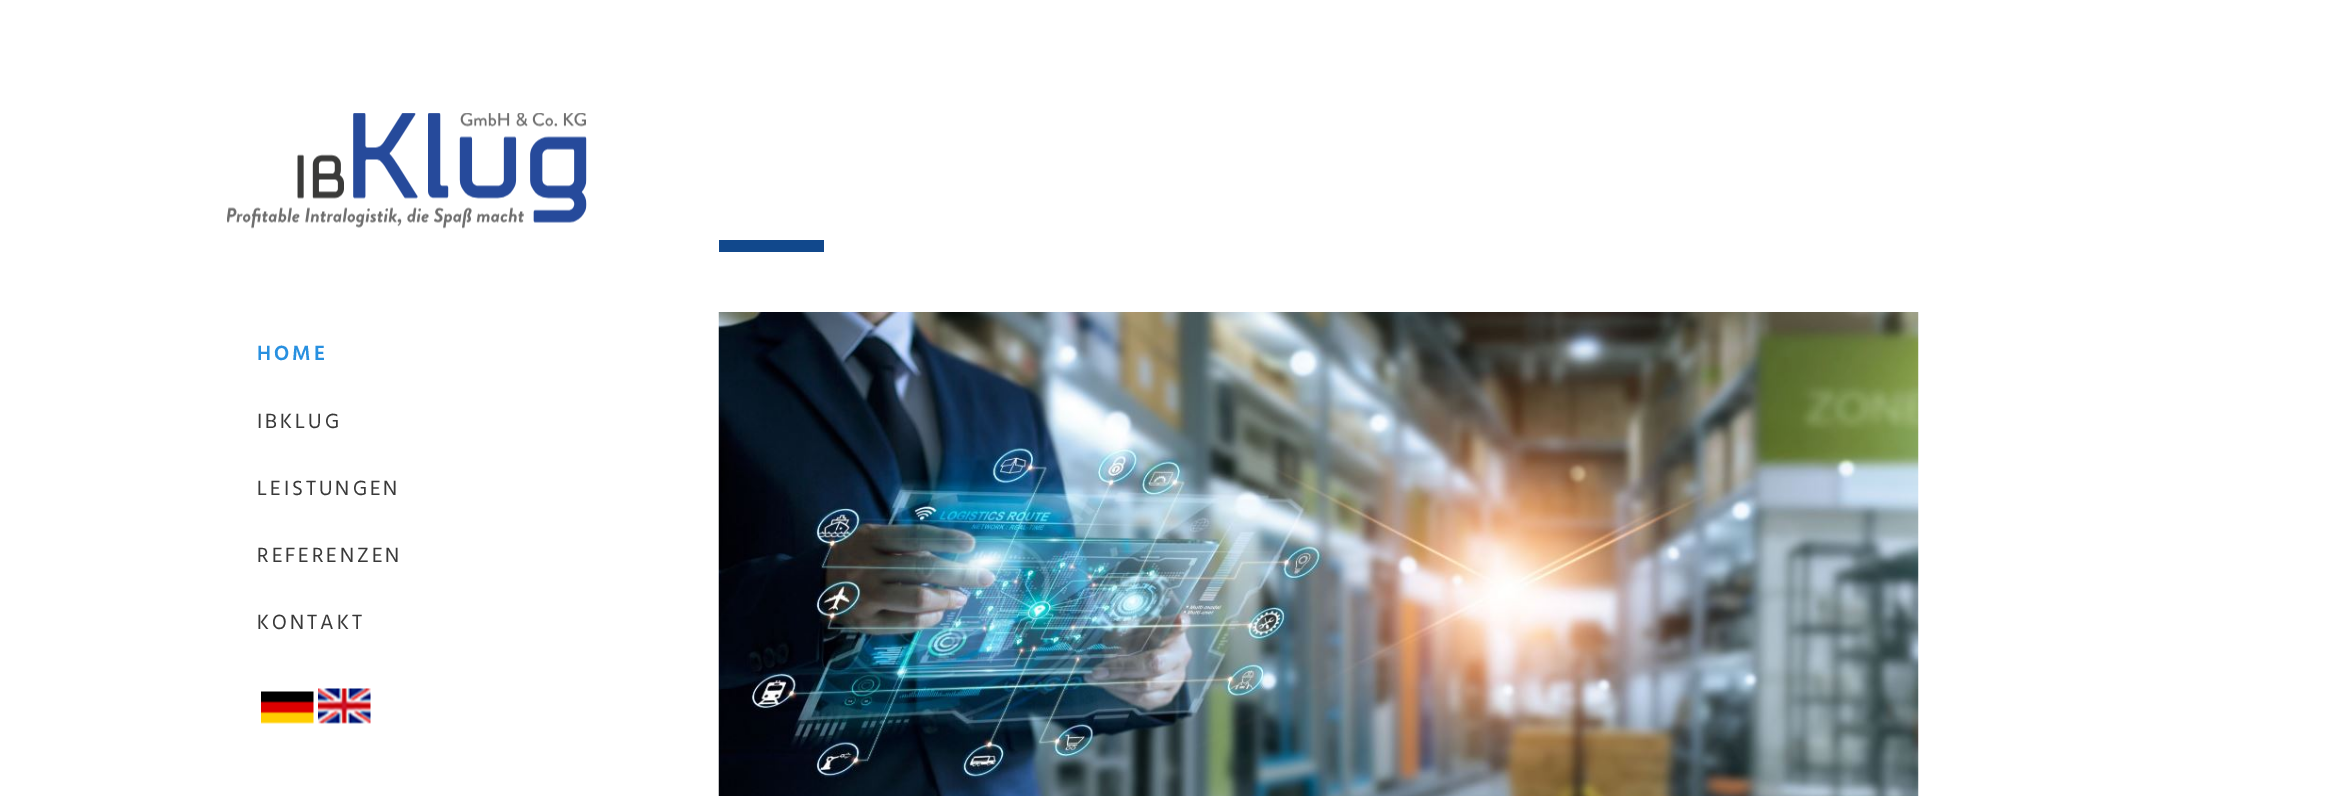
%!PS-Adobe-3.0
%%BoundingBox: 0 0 2335 796
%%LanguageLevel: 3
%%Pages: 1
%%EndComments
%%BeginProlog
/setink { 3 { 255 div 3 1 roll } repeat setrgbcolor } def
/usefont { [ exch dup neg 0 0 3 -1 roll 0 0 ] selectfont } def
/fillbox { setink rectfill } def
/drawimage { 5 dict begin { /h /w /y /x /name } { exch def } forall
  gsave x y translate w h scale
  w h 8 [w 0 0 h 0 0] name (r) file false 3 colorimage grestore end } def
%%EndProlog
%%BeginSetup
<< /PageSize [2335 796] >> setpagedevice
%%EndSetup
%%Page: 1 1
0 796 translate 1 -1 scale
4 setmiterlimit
0 0 2335 796 255 255 255 fillbox
(assets/img1.rgb) 227 113 360 116 drawimage
/Hind-SemiBold 21 usefont
40 144 224 setink
257 360 moveto 3 0 (HOME) ashow
/Hind-Regular 21 usefont
57 57 57 setink
257 428 moveto 3 0 (IBKLUG) ashow
257 495 moveto 3 0 (LEISTUNGEN) ashow
257 562 moveto 3 0 (REFERENZEN) ashow
257 629 moveto 3 0 (KONTAKT) ashow
(assets/img2.rgb) 261 691 53 33 drawimage
(assets/img3.rgb) 318 688 53 36 drawimage
719 240 105 12 17 72 140 fillbox
(assets/img4.rgb) 718 312 1201 484 drawimage
showpage
%%EOF
